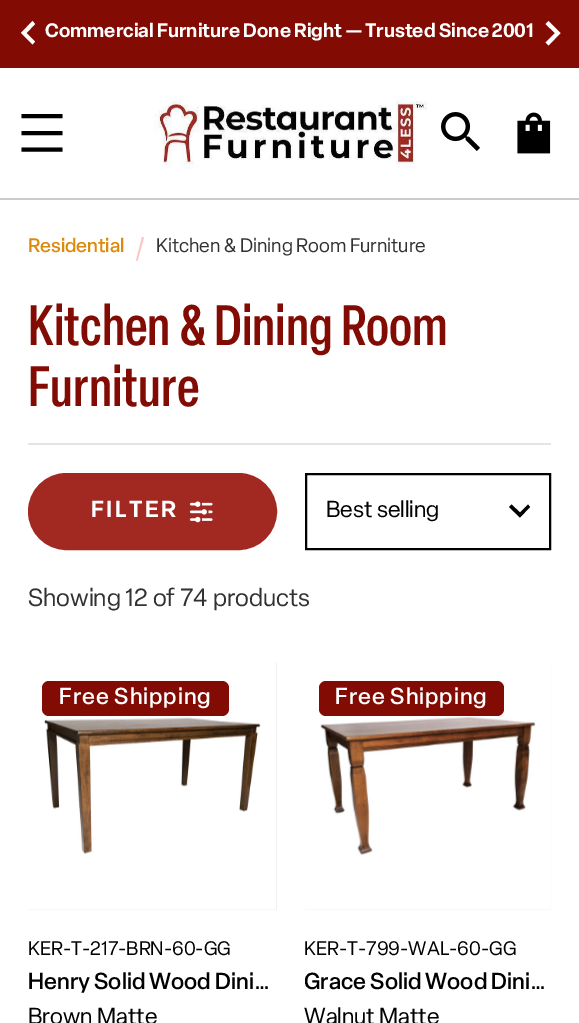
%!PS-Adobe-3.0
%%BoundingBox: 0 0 579 1023
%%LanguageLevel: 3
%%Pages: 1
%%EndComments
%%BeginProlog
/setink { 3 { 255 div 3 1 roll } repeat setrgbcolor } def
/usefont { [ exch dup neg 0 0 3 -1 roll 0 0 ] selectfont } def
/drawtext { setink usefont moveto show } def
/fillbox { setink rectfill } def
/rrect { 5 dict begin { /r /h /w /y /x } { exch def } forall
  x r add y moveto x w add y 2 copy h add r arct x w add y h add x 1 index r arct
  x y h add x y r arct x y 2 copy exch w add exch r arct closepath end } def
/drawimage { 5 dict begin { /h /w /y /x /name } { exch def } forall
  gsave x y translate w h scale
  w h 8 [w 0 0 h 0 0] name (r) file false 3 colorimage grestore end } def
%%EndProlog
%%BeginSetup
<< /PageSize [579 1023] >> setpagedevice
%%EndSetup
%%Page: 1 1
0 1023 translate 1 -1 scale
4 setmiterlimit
0 0 579 1023 255 255 255 fillbox
0 0 579 68 130 11 4 fillbox
255 255 255 setink
35 24 moveto 26.5 33 lineto 35 41.5 lineto 32.5 44.5 lineto 21 33 lineto 32.5 21 lineto closepath fill
(Commercial Furniture Done Right — Trusted Since 2001) 45 37 /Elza-SemiBold 19.25 255 255 255 drawtext
545.5 42.5 moveto 555 33 lineto 545.5 24 lineto 548.5 21 lineto 560.5 33 lineto 548.5 45.5 lineto closepath fill
0 198 579 2 204 202 200 fillbox
0 0 0 setink
4 setlinewidth
2 setlinecap
23.5 149.5 moveto 60.5 149.5 lineto 23.5 133 moveto 60.5 133 lineto 23.5 116 moveto 60.5 116 lineto stroke
(assets/img1.rgb) 154 96 273 73 drawimage
(assets/img2.rgb) 441 112 39 39 drawimage
(assets/img3.rgb) 517 112 34 42 drawimage
(Residential) 28 252 /Elza-Medium 19.25 220 138 11 drawtext
254 197 197 setink
136 260.5 moveto 142 237 lineto 144 237.5 lineto 137.5 261 lineto closepath fill
(Kitchen & Dining Room Furniture) 156 252 /Elza-Regular 19.25 51 50 50 drawtext
(Kitchen & Dining Room) 28 345 /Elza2-Medium 56 130 11 4 drawtext
(Furniture) 28 406 /Elza2-Medium 56 130 11 4 drawtext
28 443 523 2 230 227 225 fillbox
161 41 34 setink
29 474 247 75 37.5 rrect gsave fill grestore
2 setlinewidth
0 setlinecap
stroke
/Elza-SemiBold 22.75 usefont
255 255 255 setink
91 517 moveto 2.5 0 (FILTER) ashow
(assets/img4.rgb) 189 501 24 22 drawimage
0 0 0 setink
306 474 244 75 rectstroke
(Best selling) 326 517 /Elza-Regular 22.75 0 0 0 drawtext
528 504.5 moveto 520 512.5 lineto 511.5 504.5 lineto 509 507 lineto 520 517.5 lineto 530 507 lineto closepath fill
(Showing 12 of 74 products) 28 606 /Elza-Regular 24.5 51 50 50 drawtext
28 662 249 248 230 227 225 fillbox
(assets/img5.rgb) 28 662 249 248 drawimage
130 11 4 setink
42 681 187 35 7 rrect fill
/Elza-Medium 22.75 usefont
255 255 255 setink
59 704 moveto 0.9 0 (Free Shipping) ashow
(KER-T-217-BRN-60-GG) 28 955 /Elza-Regular 19.25 0 0 0 drawtext
(Henry Solid Wood Dini…) 28 989 /Elza-Medium 22.75 0 0 0 drawtext
(Brown Matte) 28 1024 /Elza-Regular 22.75 0 0 0 drawtext
305 662 246 248 230 227 225 fillbox
(assets/img6.rgb) 305 662 246 248 drawimage
130 11 4 setink
319 681 185 35 7 rrect fill
/Elza-Medium 22.75 usefont
255 255 255 setink
335 704 moveto 0.9 0 (Free Shipping) ashow
(KER-T-799-WAL-60-GG) 304 955 /Elza-Regular 19.25 0 0 0 drawtext
gsave
305 966 246 35 rectclip
(Grace Solid Wood Dini…) 304 989 /Elza-Medium 22.75 0 0 0 drawtext
grestore
(Walnut Matte) 304 1024 /Elza-Regular 22.75 0 0 0 drawtext
showpage
%%EOF
